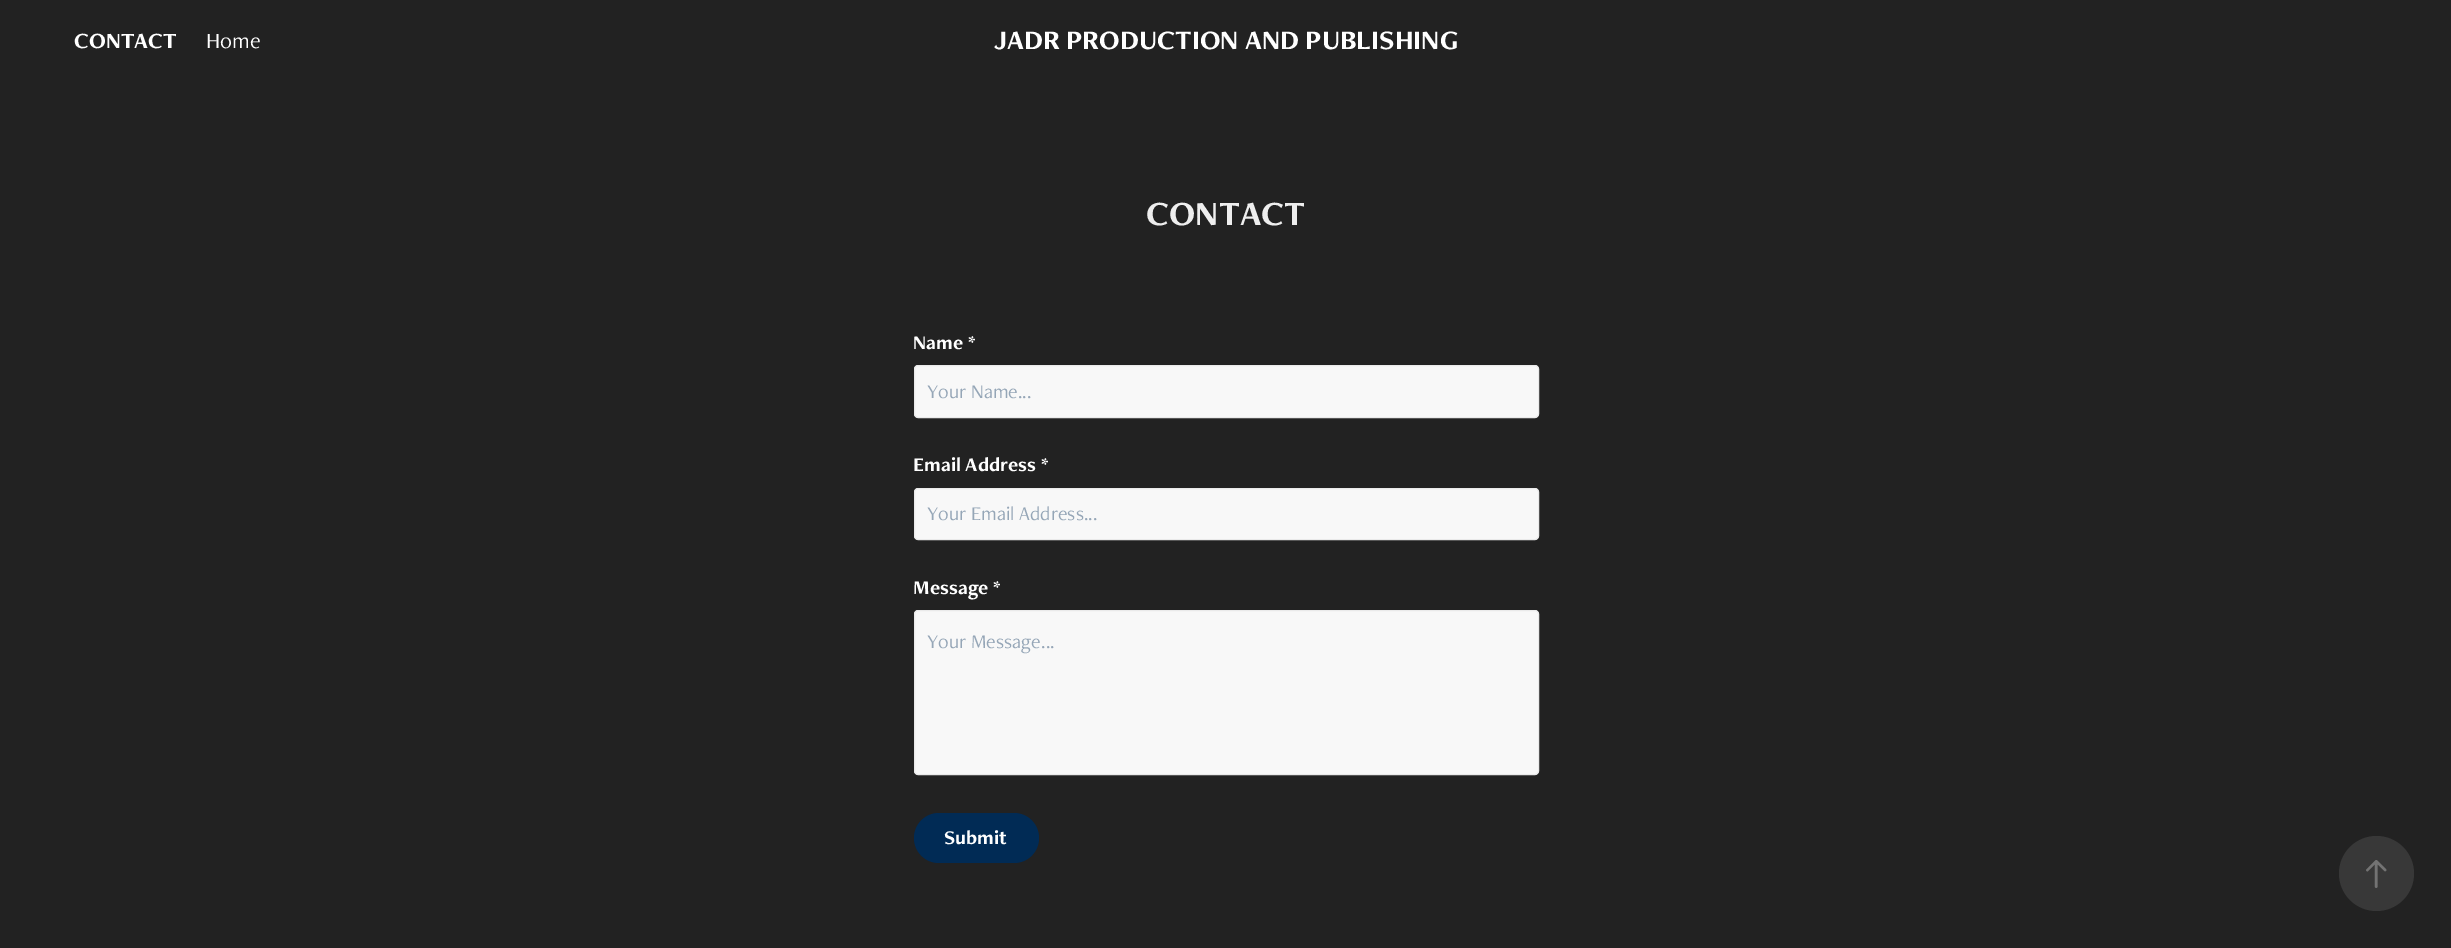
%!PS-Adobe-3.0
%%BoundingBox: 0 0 2451 948
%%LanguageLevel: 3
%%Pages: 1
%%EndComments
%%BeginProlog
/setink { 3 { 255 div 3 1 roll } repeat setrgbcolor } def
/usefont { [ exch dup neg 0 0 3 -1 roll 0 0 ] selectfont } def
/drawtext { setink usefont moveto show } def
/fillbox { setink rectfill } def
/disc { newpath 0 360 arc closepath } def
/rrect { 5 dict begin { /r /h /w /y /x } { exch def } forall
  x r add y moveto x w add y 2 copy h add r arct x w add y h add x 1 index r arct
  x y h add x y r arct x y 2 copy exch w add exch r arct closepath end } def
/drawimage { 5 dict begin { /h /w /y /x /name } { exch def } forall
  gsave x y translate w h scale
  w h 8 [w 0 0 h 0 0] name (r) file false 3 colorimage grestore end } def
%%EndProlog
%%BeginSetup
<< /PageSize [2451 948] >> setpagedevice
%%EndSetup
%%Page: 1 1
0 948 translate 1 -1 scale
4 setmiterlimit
0 0 2451 948 34 34 34 fillbox
(CONTACT) 74 48 /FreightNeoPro-Bold 22.5 255 255 255 drawtext
(Home) 206 48 /FreightNeoPro-Regular 22.5 255 255 255 drawtext
(JADR PRODUCTION AND PUBLISHING) 994 49 /FreightNeoPro-Bold 27.5 255 255 255 drawtext
(CONTACT) 1146 225 /FreightNeoPro-Bold 35 238 238 238 drawtext
(Name *) 913 349 /FreightNeoPro-Bold 20 255 255 255 drawtext
248 248 248 setink
914.5 365.5 624 52 3.5 rrect gsave fill grestore
234 234 234 setink
stroke
(Your Name...) 927 398 /FreightNeoPro-Regular 20 149 166 183 drawtext
(Email Address *) 913 471 /FreightNeoPro-Bold 20 255 255 255 drawtext
248 248 248 setink
914.5 488.5 624 51 3.5 rrect gsave fill grestore
234 234 234 setink
stroke
(Your Email Address...) 927 520 /FreightNeoPro-Regular 20 149 166 183 drawtext
(Message *) 913 594 /FreightNeoPro-Bold 20 255 255 255 drawtext
248 248 248 setink
914.5 610.5 624 164 3.5 rrect gsave fill grestore
234 234 234 setink
stroke
(Your Message...) 927 648 /FreightNeoPro-Regular 20 149 166 183 drawtext
1 43 85 setink
914 813 125 50 25 rrect fill
(Submit) 944 844 /FreightNeoPro-Bold 20 255 255 255 drawtext
56 56 56 setink
2376.5 873.5 37.5 disc fill
(assets/img1.rgb) 2366 860 21 28 drawimage
showpage
%%EOF
